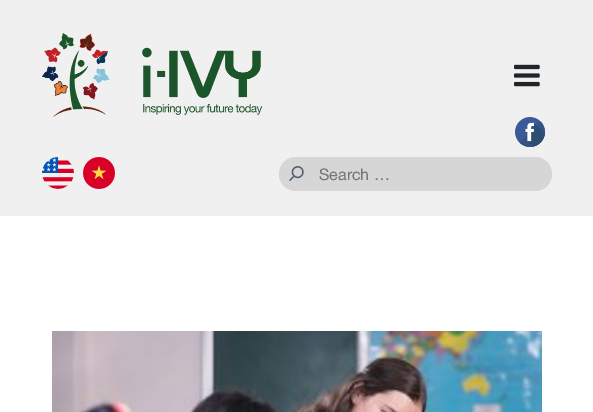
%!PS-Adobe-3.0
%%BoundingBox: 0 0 593 412
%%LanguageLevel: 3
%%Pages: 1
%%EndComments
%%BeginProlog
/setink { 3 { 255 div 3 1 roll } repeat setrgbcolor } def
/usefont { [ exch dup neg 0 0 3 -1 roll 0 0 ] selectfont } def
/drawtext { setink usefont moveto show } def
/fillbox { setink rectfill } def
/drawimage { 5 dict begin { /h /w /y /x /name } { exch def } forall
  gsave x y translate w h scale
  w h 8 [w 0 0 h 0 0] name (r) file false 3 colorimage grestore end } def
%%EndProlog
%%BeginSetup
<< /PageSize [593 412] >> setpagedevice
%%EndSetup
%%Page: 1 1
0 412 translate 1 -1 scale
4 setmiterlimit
0 0 593 412 255 255 255 fillbox
0 0 593 216 240 240 240 fillbox
(assets/img1.rgb) 42 33 220 84 drawimage
(assets/img2.rgb) 514 64 26 23 drawimage
(assets/img3.rgb) 515 117 30 30 drawimage
(assets/img4.rgb) 42 157 32 32 drawimage
(assets/img5.rgb) 83 157 32 32 drawimage
214 214 214 setink
296 157 moveto 315 157 lineto 315 191 lineto 296 191 lineto 286.5 191 279 183.5 279 174 curveto 279 164.5 286.5 157 296 157 curveto closepath fill
(assets/img6.rgb) 289 166 15 15 drawimage
314 157 moveto 535 157 lineto 544.5 157 552 164.5 552 174 curveto 552 183.5 544.5 191 535 191 curveto 314 191 lineto closepath fill
(Search …) 319 180 /HelveticaNeue-Regular 16 117 117 117 drawtext
(assets/img7.rgb) 52 331 490 81 drawimage
showpage
%%EOF
